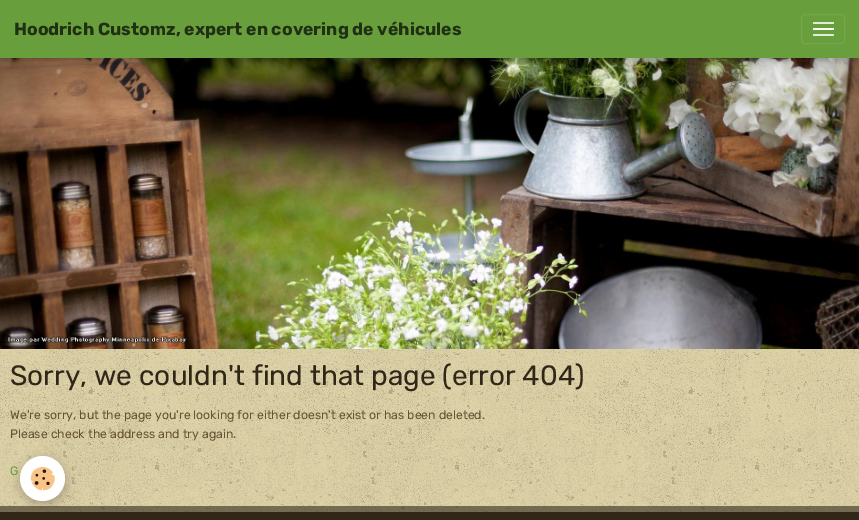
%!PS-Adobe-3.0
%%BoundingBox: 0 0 859 520
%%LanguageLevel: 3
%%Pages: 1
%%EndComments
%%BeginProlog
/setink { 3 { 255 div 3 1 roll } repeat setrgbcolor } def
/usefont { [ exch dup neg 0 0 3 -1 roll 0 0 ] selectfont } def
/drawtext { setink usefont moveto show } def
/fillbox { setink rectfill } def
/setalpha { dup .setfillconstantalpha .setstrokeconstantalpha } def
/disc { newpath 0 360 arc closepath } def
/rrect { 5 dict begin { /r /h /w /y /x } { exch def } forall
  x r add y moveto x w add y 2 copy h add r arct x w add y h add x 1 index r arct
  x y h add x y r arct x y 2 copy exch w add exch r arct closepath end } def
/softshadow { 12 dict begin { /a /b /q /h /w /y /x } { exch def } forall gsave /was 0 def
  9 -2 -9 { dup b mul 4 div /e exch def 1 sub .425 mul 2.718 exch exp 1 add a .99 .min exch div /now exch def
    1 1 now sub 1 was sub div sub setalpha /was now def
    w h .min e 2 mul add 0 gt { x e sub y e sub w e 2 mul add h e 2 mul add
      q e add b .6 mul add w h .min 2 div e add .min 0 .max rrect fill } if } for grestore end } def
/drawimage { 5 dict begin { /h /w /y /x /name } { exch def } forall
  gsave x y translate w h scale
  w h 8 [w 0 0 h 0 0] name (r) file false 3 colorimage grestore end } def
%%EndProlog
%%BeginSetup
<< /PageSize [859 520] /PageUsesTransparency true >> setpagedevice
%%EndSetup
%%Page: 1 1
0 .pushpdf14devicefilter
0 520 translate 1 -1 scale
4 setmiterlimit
0 0 859 520 222 210 168 fillbox
(assets/img1.rgb) 0 349 859 163 drawimage
(assets/img2.rgb) 0 58 859 291 drawimage
0 0 0 setink
0 3 859 58 0 3.5 0.2 softshadow
0 0 859 58 105 158 60 fillbox
(Hoodrich Customz, expert en covering de véhicules) 14 35 /Rubik-Bold 17.5 32 48 18 drawtext
117 166 76 setink
801.5 14.5 43 29 3.5 rrect stroke
225 236 216 setink
813 22 21 2 1 rrect fill
813 28 21 2 1 rrect fill
0.8 setalpha
255 255 255 setink
813 28 21 2 1 rrect fill
1 setalpha
225 236 216 setink
813 34 21 2 1 rrect fill
(Sorry, we couldn't find that page \(error 404\)) 10 385 /Rubik-Regular 28 48 39 24 drawtext
(We're sorry, but the page you're looking for either doesn't exist or has been deleted.) 10 419 /Rubik-Regular 12.25 102 83 51 drawtext
(Please check the address and try again.) 10 438 /Rubik-Regular 12.25 102 83 51 drawtext
(G) 10 475 /Rubik-Regular 12.25 105 158 60 drawtext
0 512 859 8 48 39 24 fillbox
0.43 setalpha
0 506 859 6 48 39 24 fillbox
0.29 setalpha
0 506 859 6 48 39 24 fillbox
1 setalpha
0 0 0 setink
20 459 45 45 22.5 5 0.24 softshadow
255 255 255 setink
42.5 478.5 22.5 disc fill
(assets/img3.rgb) 30 466 25 25 drawimage
.poppdf14devicefilter showpage
%%EOF
